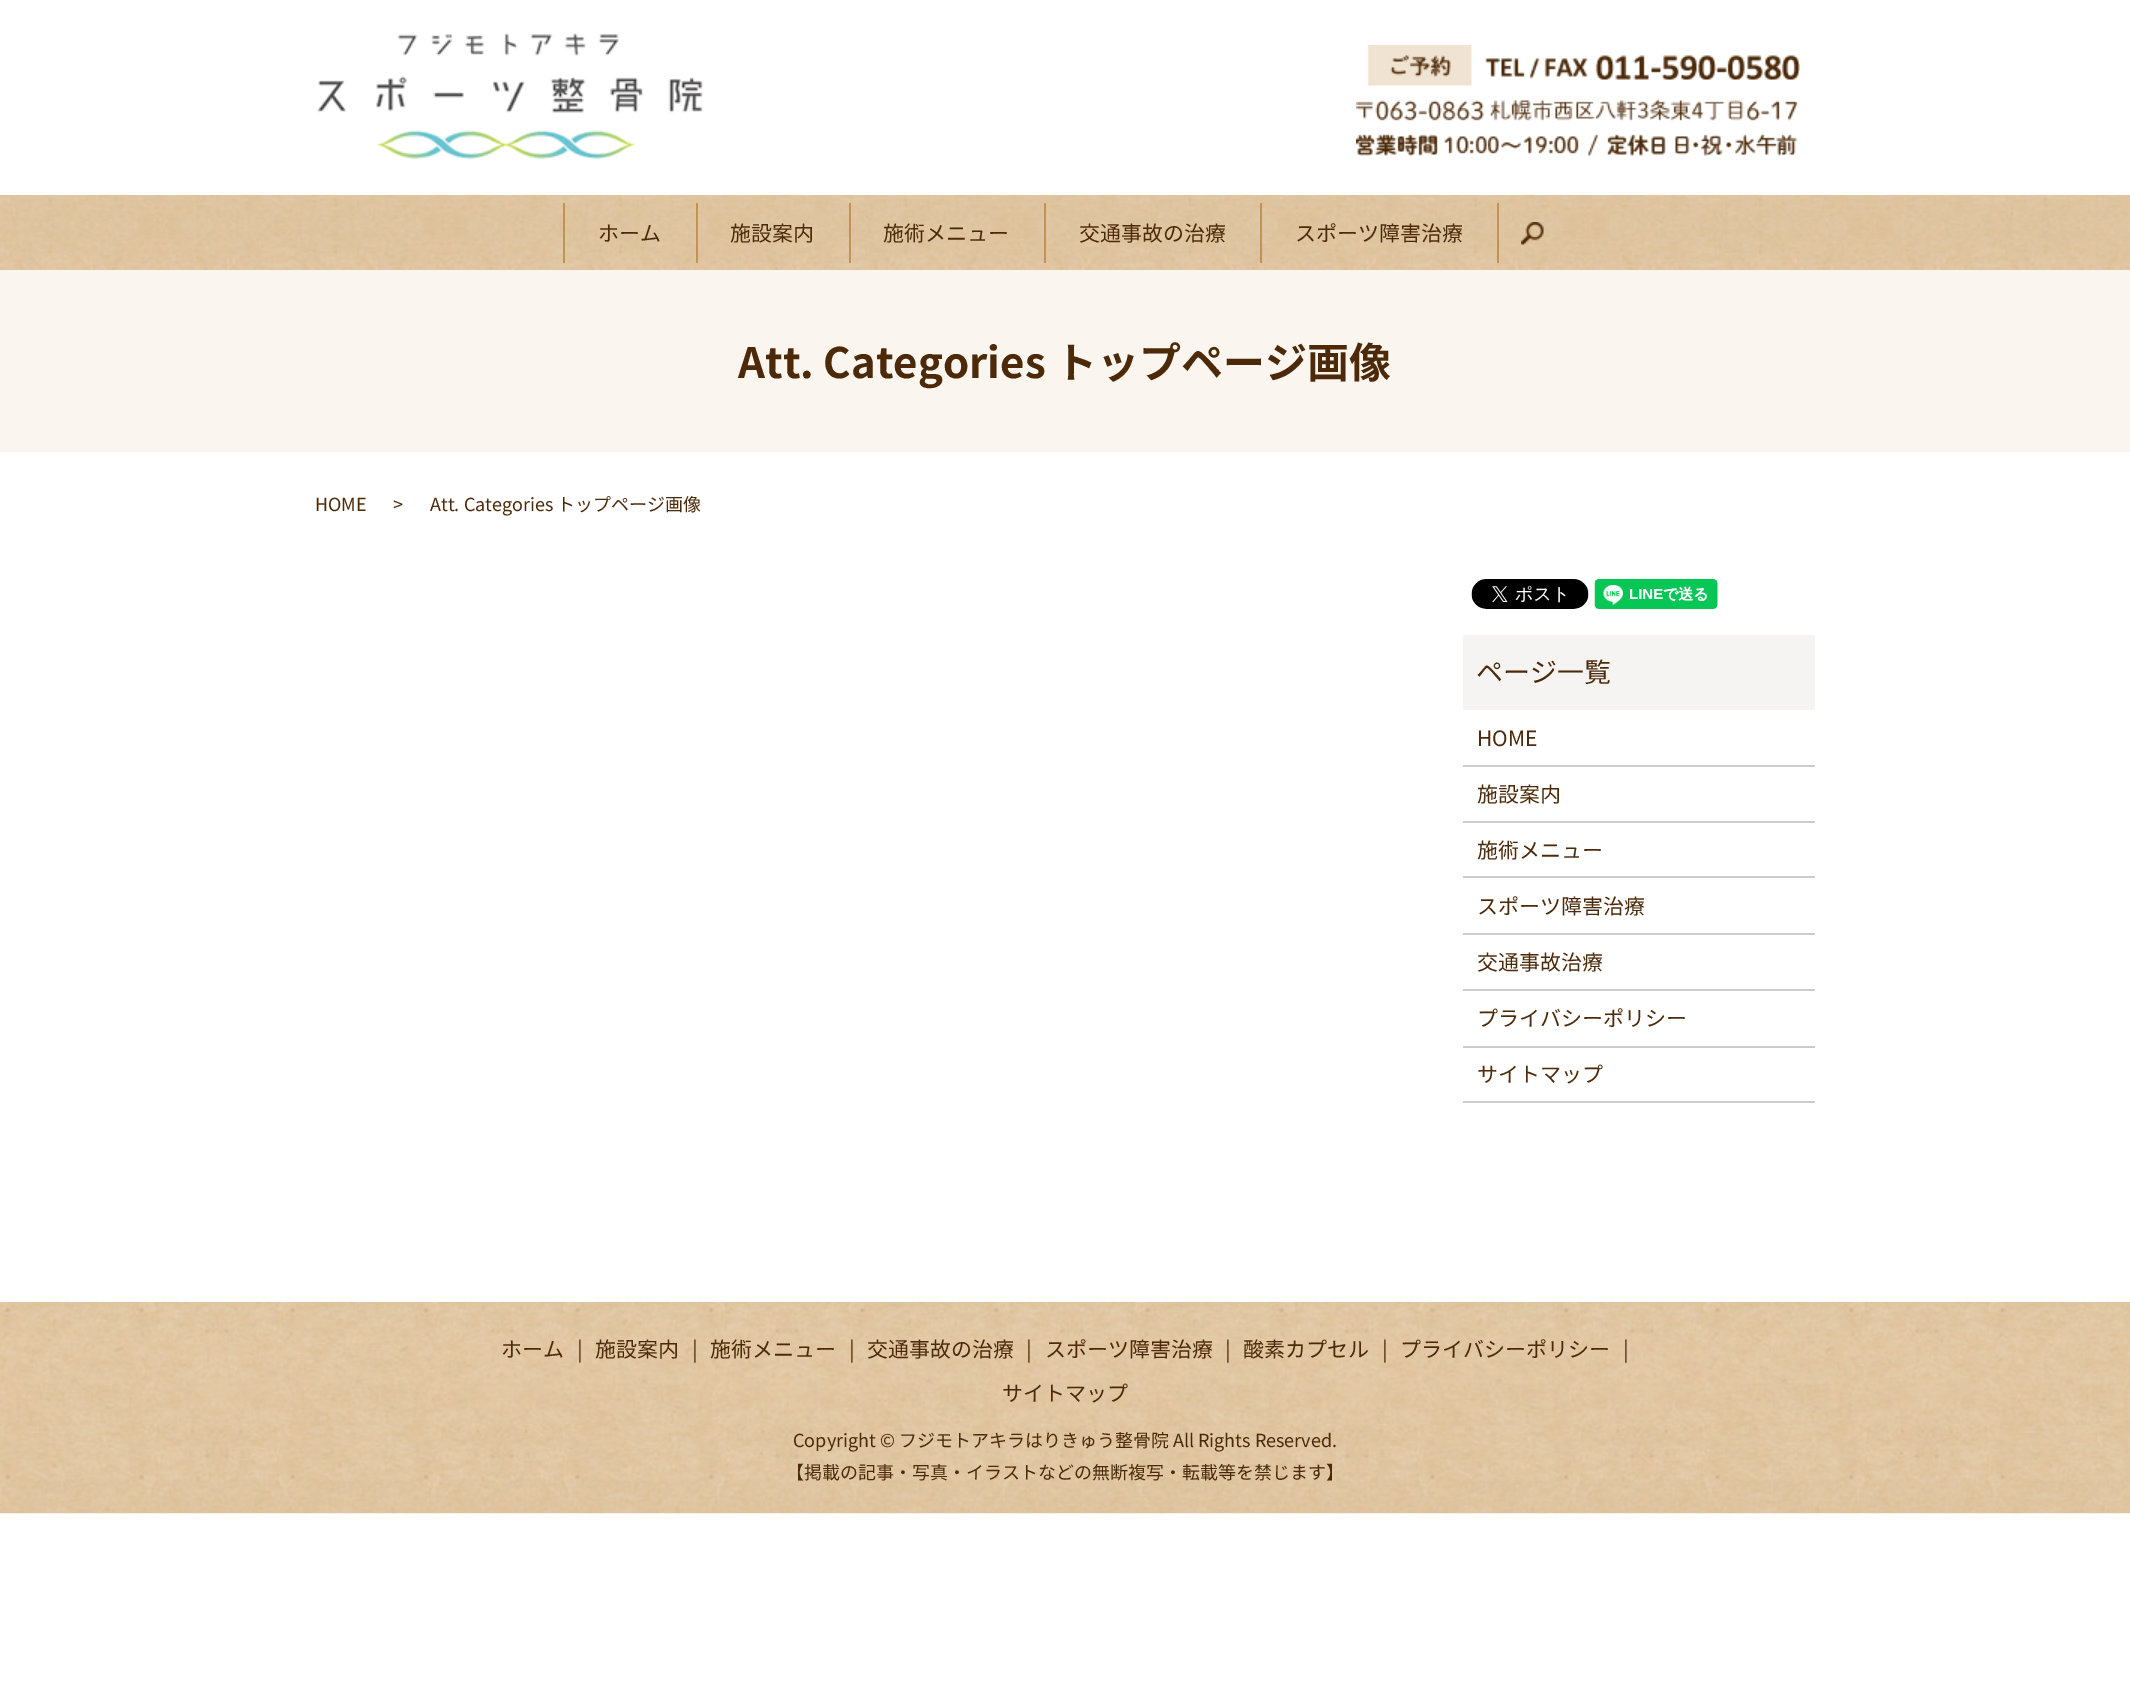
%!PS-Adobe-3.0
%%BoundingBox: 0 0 2130 1693
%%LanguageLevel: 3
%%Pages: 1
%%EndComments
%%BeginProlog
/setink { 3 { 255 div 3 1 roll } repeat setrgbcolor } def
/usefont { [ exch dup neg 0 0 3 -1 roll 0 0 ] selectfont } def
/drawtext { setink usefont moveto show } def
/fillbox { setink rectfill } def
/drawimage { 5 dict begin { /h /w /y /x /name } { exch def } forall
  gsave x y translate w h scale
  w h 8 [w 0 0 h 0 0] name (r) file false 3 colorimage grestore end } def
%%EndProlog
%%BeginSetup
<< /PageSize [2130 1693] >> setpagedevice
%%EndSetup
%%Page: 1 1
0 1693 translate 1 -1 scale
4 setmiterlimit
0 0 2130 1693 255 255 255 fillbox
(assets/img1.rgb) 317 33 386 127 drawimage
(assets/img2.rgb) 1356 45 444 111 drawimage
(assets/img3.rgb) 0 195 2130 75 drawimage
563 203 2 60 193 148 86 fillbox
(ホーム) 598 241 /NotoSansJP-Regular 21 76 42 9 drawtext
696 203 2 60 193 148 86 fillbox
(施設案内) 730 241 /NotoSansJP-Regular 21 76 42 9 drawtext
849 203 2 60 193 148 86 fillbox
(施術メニュー) 883 241 /NotoSansJP-Regular 21 76 42 9 drawtext
1044 203 2 60 193 148 86 fillbox
(交通事故の治療) 1079 241 /NotoSansJP-Regular 21 76 42 9 drawtext
1260 203 2 60 193 148 86 fillbox
(スポーツ障害治療) 1295 241 /NotoSansJP-Regular 21 76 42 9 drawtext
(assets/img4.rgb) 1521 222 23 23 drawimage
1497 203 2 60 193 148 86 fillbox
0 270 2130 182 250 245 238 fillbox
(Att. Categories トップページ画像) 738 378 /NotoSansJP-Bold 42 76 42 9 drawtext
(HOME) 315 511 /NotoSansJP-Regular 18 76 42 9 drawtext
(>) 393 511 /NotoSansJP-Regular 18 76 42 9 drawtext
(Att. Categories トップページ画像) 430 511 /NotoSansJP-Regular 18 76 42 9 drawtext
(assets/img5.rgb) 1471 579 118 30 drawimage
(assets/img6.rgb) 1594 579 124 30 drawimage
1463 635 352 75 246 244 243 fillbox
(ページ一覧) 1476 682 /NotoSansJP-Regular 27 76 42 9 drawtext
1463 765 352 2 204 204 204 fillbox
(HOME) 1477 746 /NotoSansJP-Regular 21 76 42 9 drawtext
1463 821 352 2 204 204 204 fillbox
(施設案内) 1477 802 /NotoSansJP-Regular 21 76 42 9 drawtext
1463 876 352 2 204 204 204 fillbox
(施術メニュー) 1477 858 /NotoSansJP-Regular 21 76 42 9 drawtext
1463 933 352 2 204 204 204 fillbox
(スポーツ障害治療) 1477 914 /NotoSansJP-Regular 21 76 42 9 drawtext
1463 989 352 2 204 204 204 fillbox
(交通事故治療) 1477 970 /NotoSansJP-Regular 21 76 42 9 drawtext
1463 1046 352 2 204 204 204 fillbox
(プライバシーポリシー) 1477 1026 /NotoSansJP-Regular 21 76 42 9 drawtext
1463 1101 352 2 204 204 204 fillbox
(サイトマップ) 1477 1082 /NotoSansJP-Regular 21 76 42 9 drawtext
(assets/img7.rgb) 0 1302 2130 212 drawimage
(|) 577 1357 /NotoSansJP-Regular 21 76 42 9 drawtext
(施設案内) 595 1357 /NotoSansJP-Regular 21 76 42 9 drawtext
(|) 692 1357 /NotoSansJP-Regular 21 76 42 9 drawtext
(施術メニュー) 710 1357 /NotoSansJP-Regular 21 76 42 9 drawtext
(|) 849 1357 /NotoSansJP-Regular 21 76 42 9 drawtext
(交通事故の治療) 867 1357 /NotoSansJP-Regular 21 76 42 9 drawtext
(|) 1623 1357 /NotoSansJP-Regular 21 76 42 9 drawtext
(サイトマップ) 1002 1401 /NotoSansJP-Regular 21 76 42 9 drawtext
(ホーム) 501 1357 /NotoSansJP-Regular 21 76 42 9 drawtext
(|) 1026 1357 /NotoSansJP-Regular 21 76 42 9 drawtext
(スポーツ障害治療) 1045 1357 /NotoSansJP-Regular 21 76 42 9 drawtext
(|) 1225 1357 /NotoSansJP-Regular 21 76 42 9 drawtext
(酸素カプセル) 1243 1357 /NotoSansJP-Regular 21 76 42 9 drawtext
(|) 1382 1357 /NotoSansJP-Regular 21 76 42 9 drawtext
(プライバシーポリシー) 1400 1357 /NotoSansJP-Regular 21 76 42 9 drawtext
(Copyright © フジモトアキラはりきゅう整骨院 All Rights Reserved.) 793 1447 /NotoSansJP-Regular 18 76 42 9 drawtext
(【掲載の記事・写真・イラストなどの無断複写・転載等を禁じます】) 786 1479 /NotoSansJP-Regular 18 76 42 9 drawtext
showpage
%%EOF
